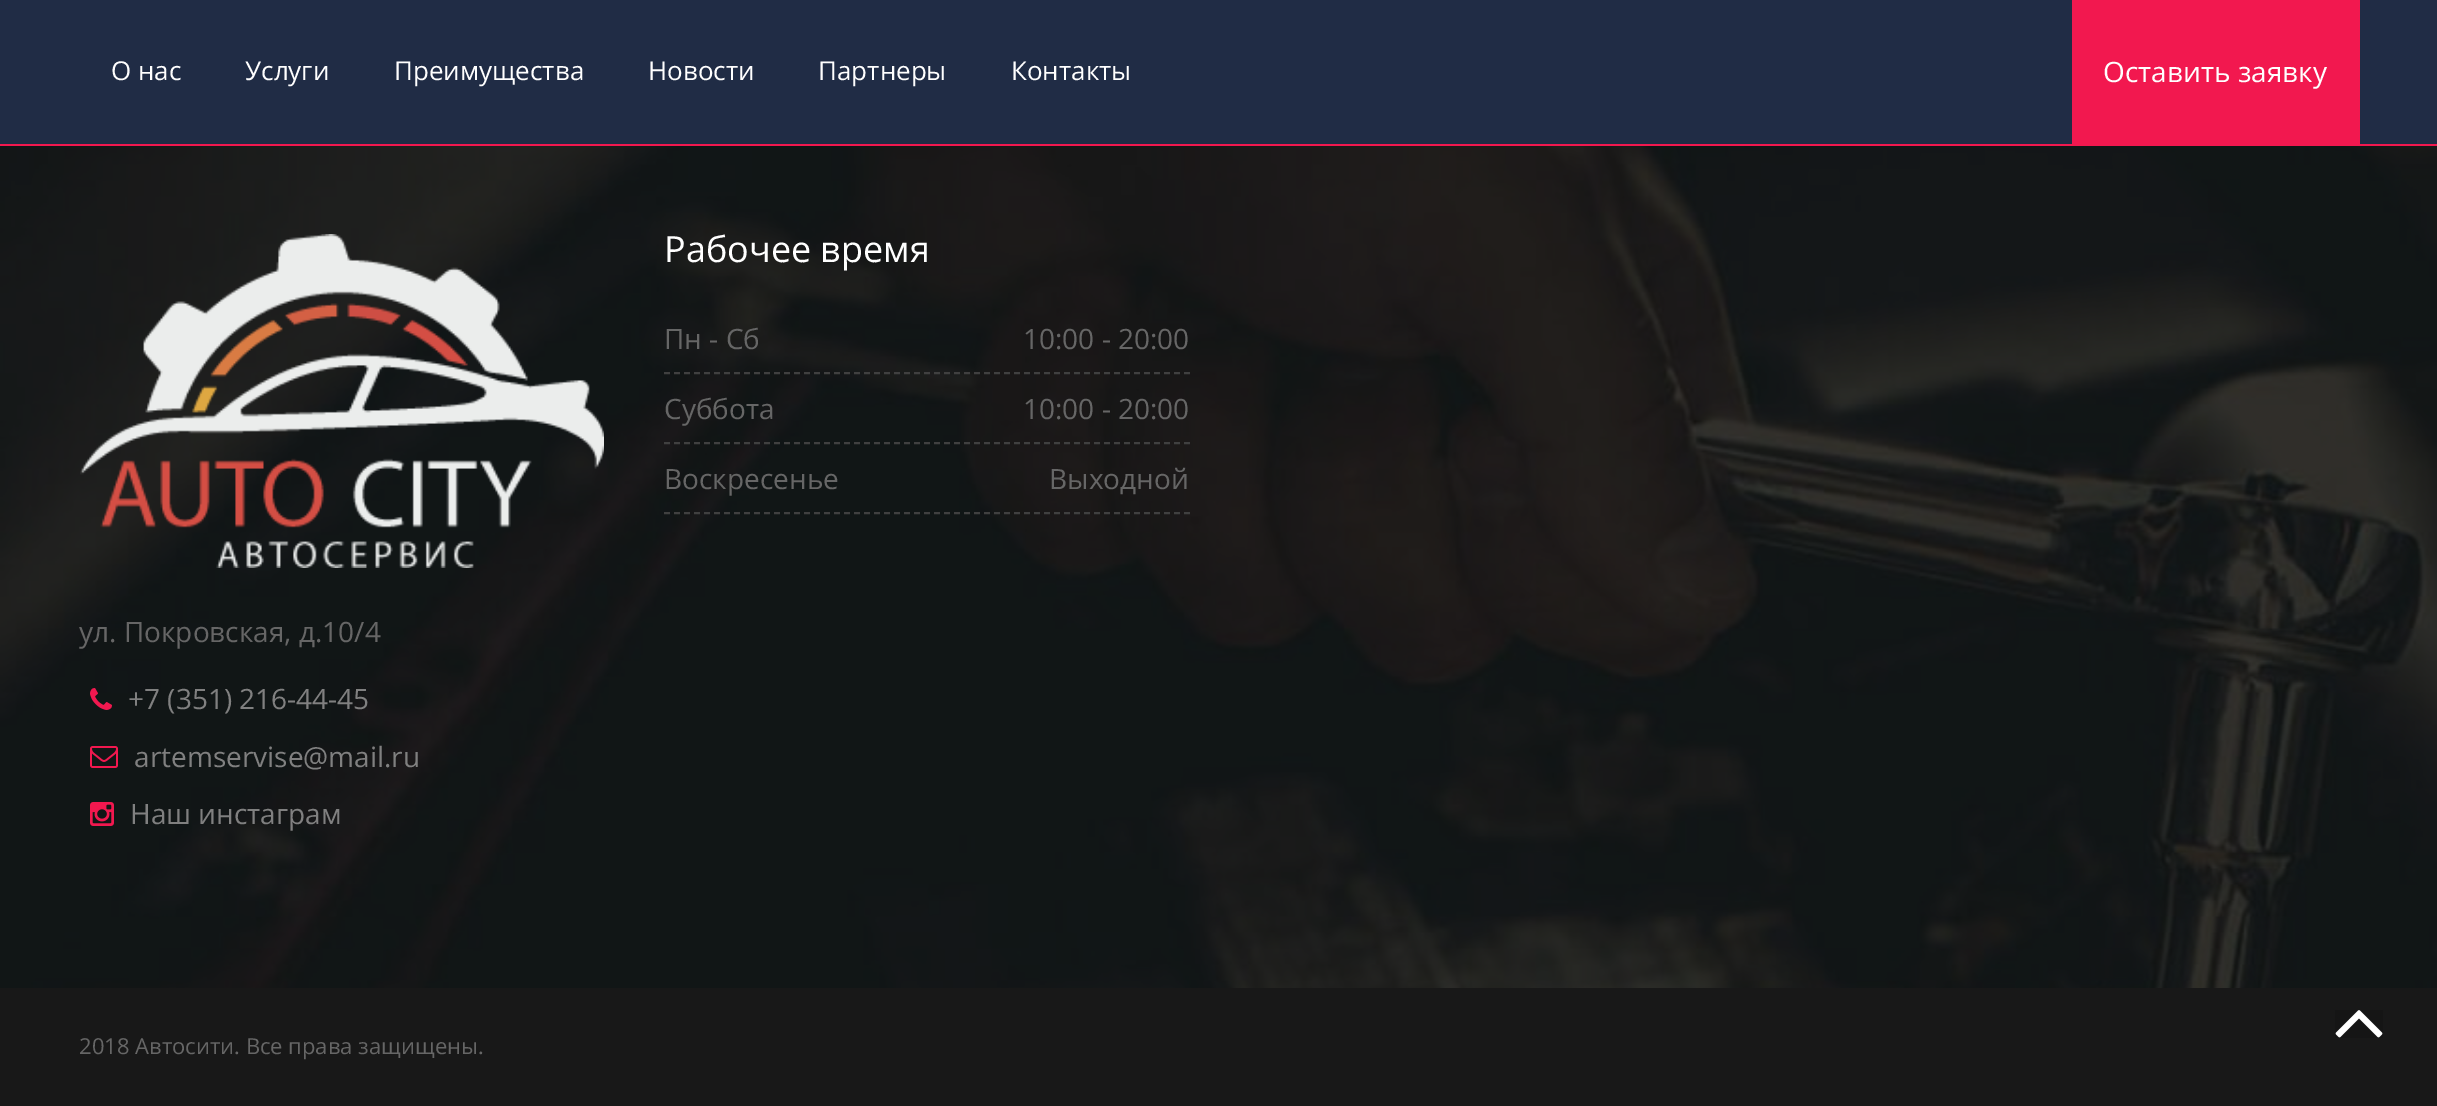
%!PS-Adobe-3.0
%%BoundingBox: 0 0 2437 1106
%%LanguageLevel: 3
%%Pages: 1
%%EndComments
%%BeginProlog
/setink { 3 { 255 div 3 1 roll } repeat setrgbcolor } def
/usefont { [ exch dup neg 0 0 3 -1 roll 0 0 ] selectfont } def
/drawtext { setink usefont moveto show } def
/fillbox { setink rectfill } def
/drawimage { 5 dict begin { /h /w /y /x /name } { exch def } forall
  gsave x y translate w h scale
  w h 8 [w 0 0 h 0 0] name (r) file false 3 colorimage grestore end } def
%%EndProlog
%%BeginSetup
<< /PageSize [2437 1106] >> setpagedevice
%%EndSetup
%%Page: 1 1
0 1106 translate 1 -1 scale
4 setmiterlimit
0 0 2437 1106 255 255 255 fillbox
0 0 2437 144 32 44 69 fillbox
0 144 2437 2 242 24 79 fillbox
(О нас) 111 80 /OpenSans-Regular 26 255 255 255 drawtext
(Услуги) 245 80 /OpenSans-Regular 26 255 255 255 drawtext
(Преимущества) 394 80 /OpenSans-Regular 26 255 255 255 drawtext
(Новости) 648 80 /OpenSans-Regular 26 255 255 255 drawtext
(Партнеры) 818 80 /OpenSans-Regular 26 255 255 255 drawtext
(Контакты) 1011 80 /OpenSans-Regular 26 255 255 255 drawtext
2072 0 288 144 242 24 79 fillbox
(Оставить заявку) 2103 82 /OpenSans-Regular 28 255 255 255 drawtext
(assets/img1.rgb) 0 146 2437 842 drawimage
(Рабочее время) 664 262 /OpenSans-Regular 36 255 255 255 drawtext
64 64 64 setink
2 setlinewidth
[6 4] 0 setdash
664 373 moveto 1190 373 lineto stroke
(Пн - Сб) 664 349 /OpenSans-Regular 28 102 102 102 drawtext
(10:00 - 20:00) 1023 349 /OpenSans-Regular 28 102 102 102 drawtext
64 64 64 setink
664 443 moveto 1190 443 lineto stroke
(Суббота) 664 419 /OpenSans-Regular 28 102 102 102 drawtext
(10:00 - 20:00) 1023 419 /OpenSans-Regular 28 102 102 102 drawtext
64 64 64 setink
664 513 moveto 1190 513 lineto stroke
(Воскресенье) 664 489 /OpenSans-Regular 28 102 102 102 drawtext
(Выходной) 1049 489 /OpenSans-Regular 28 102 102 102 drawtext
(assets/img2.rgb) 80 234 524 334 drawimage
(ул. Покровская, д.10/4) 79 642 /OpenSans-Regular 28 102 102 102 drawtext
(assets/img3.rgb) 90 688 22 22 drawimage
(+7 \(351\) 216-44-45) 128 709 /OpenSans-Regular 28 128 128 128 drawtext
(assets/img4.rgb) 90 746 28 22 drawimage
(artemservise@mail.ru) 134 767 /OpenSans-Regular 28 128 128 128 drawtext
(assets/img5.rgb) 90 802 24 24 drawimage
(Наш инстаграм) 130 824 /OpenSans-Regular 28 128 128 128 drawtext
0 988 2437 118 24 24 24 fillbox
(2018 Автосити. Все права защищены.) 79 1054 /OpenSans-Regular 22 102 102 102 drawtext
(assets/img6.rgb) 2335 1010 48 28 drawimage
showpage
%%EOF
